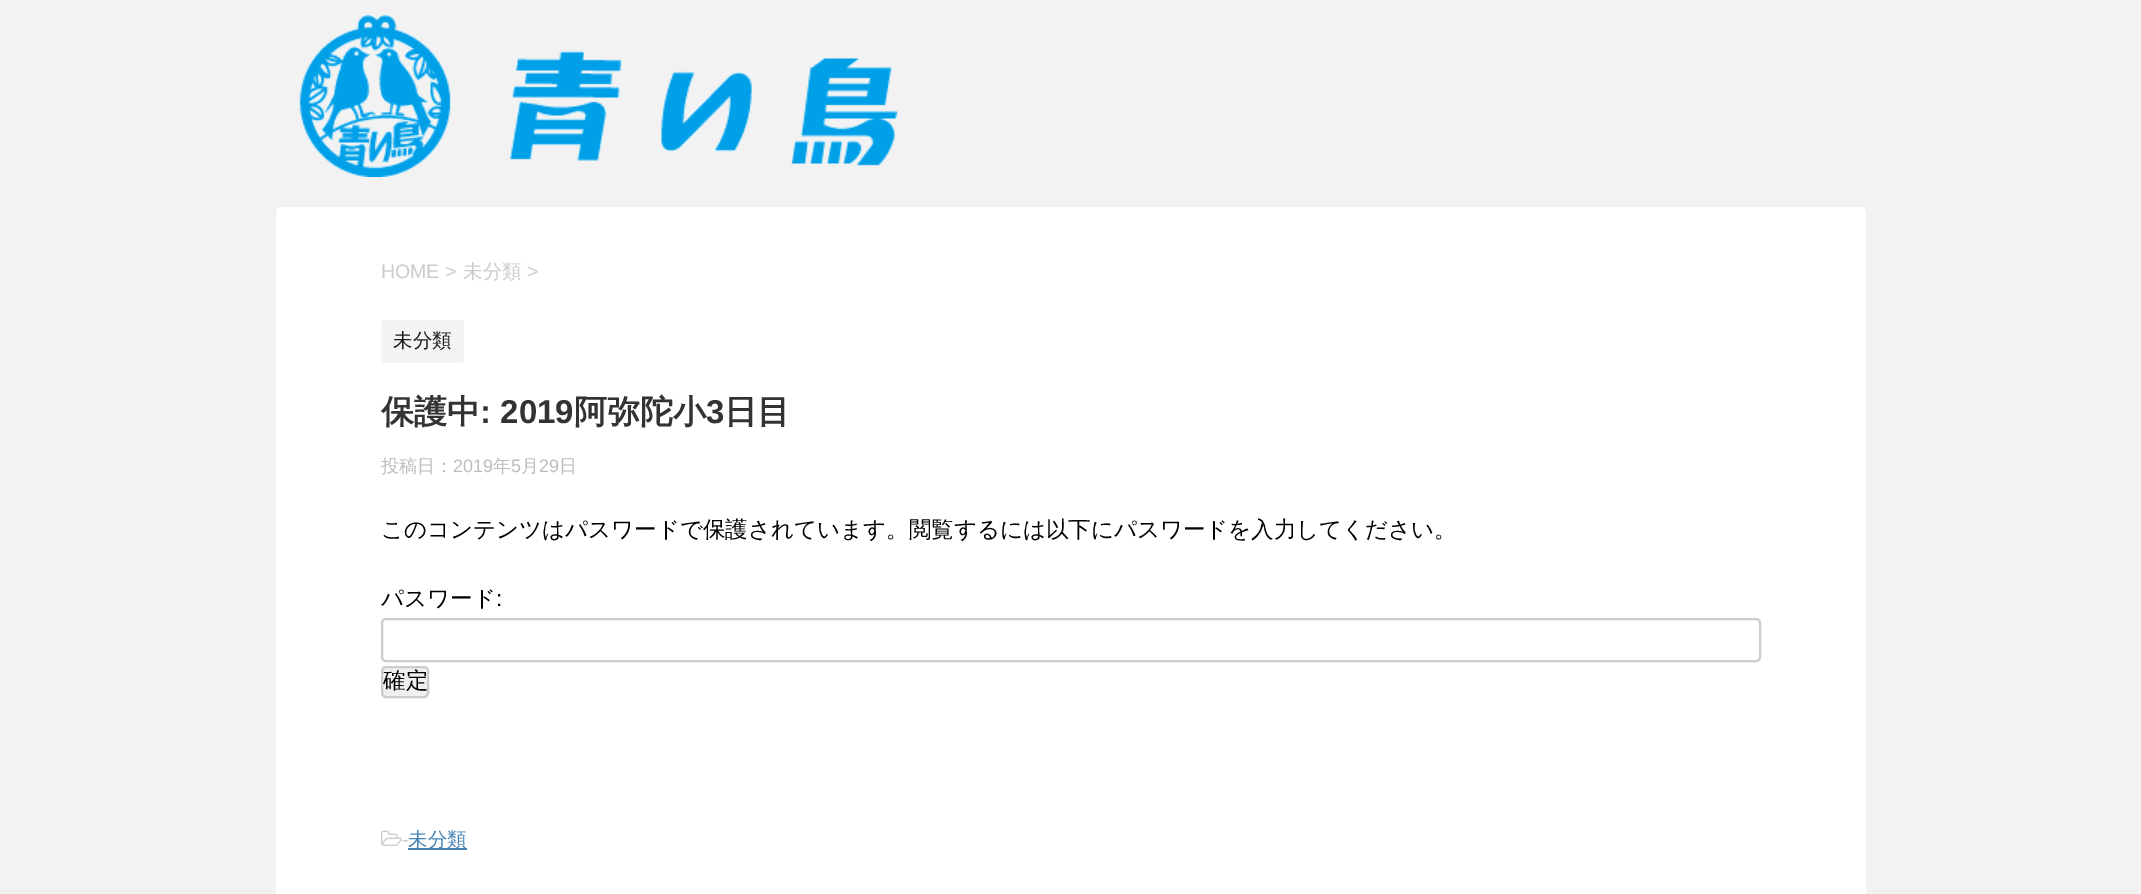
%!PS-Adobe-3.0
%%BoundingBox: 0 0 2141 894
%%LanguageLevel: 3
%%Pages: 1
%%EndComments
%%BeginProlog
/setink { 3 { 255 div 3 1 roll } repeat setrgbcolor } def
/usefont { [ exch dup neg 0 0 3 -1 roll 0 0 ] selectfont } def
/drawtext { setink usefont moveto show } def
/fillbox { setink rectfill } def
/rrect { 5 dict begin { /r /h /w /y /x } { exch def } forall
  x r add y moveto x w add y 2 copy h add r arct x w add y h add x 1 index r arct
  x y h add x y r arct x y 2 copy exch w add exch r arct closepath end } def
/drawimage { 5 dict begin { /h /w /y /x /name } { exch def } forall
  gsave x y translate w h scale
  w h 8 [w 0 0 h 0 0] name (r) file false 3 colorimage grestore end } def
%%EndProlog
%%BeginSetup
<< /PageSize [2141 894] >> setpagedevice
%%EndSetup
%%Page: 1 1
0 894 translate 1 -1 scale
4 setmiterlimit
0 0 2141 894 242 242 242 fillbox
(assets/img1.rgb) 299 15 599 162 drawimage
255 255 255 setink
276 207 1590 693 6 rrect fill
(HOME >) 381 278 /LiberationSans-Regular 19.5 204 204 204 drawtext
(未分類) 463 278 /WenQuanYiZenHei-Medium 19.5 204 204 204 drawtext
(>) 527 278 /LiberationSans-Regular 19.5 204 204 204 drawtext
243 243 243 setink
381 320 83 43 3 rrect fill
(未分類) 393 347 /WenQuanYiZenHei-Medium 19.5 26 26 26 drawtext
(保護中) 381 423 /WenQuanYiZenHei-Bold 33 51 51 51 drawtext
(: 2019) 480 423 /LiberationSans-Bold 33 51 51 51 drawtext
(阿弥陀小) 574 423 /WenQuanYiZenHei-Bold 33 51 51 51 drawtext
(3) 706 423 /LiberationSans-Bold 33 51 51 51 drawtext
(日目) 724 423 /WenQuanYiZenHei-Bold 33 51 51 51 drawtext
(投稿日：) 381 472 /WenQuanYiZenHei-Medium 18 189 189 189 drawtext
(2019) 453 472 /LiberationSans-Regular 18 189 189 189 drawtext
(年) 493 472 /WenQuanYiZenHei-Medium 18 189 189 189 drawtext
(5) 511 472 /LiberationSans-Regular 18 189 189 189 drawtext
(月) 521 472 /WenQuanYiZenHei-Medium 18 189 189 189 drawtext
(29) 539 472 /LiberationSans-Regular 18 189 189 189 drawtext
(日) 559 472 /WenQuanYiZenHei-Medium 18 189 189 189 drawtext
(このコンテンツはパスワードで保護されています。閲覧するには以下にパスワードを入力してください。) 381 537 /WenQuanYiZenHei-Medium 22.5 0 0 0 drawtext
(パスワード) 381 606 /WenQuanYiZenHei-Medium 22.5 0 0 0 drawtext
(:) 496 606 /LiberationSans-Regular 22.5 0 0 0 drawtext
204 204 204 setink
2 setlinewidth
382 619 1378 42 4 rrect stroke
239 239 239 setink
382 667 46 30 4 rrect gsave fill grestore
204 204 204 setink
stroke
(確定) 383 688 /WenQuanYiZenHei-Medium 22.5 0 0 0 drawtext
(assets/img2.rgb) 381 830 21 16 drawimage
(-) 402 846 /LiberationSans-Regular 19.5 204 204 204 drawtext
408 848 59 2 70 130 180 fillbox
(未分類) 408 846 /WenQuanYiZenHei-Medium 19.5 70 130 180 drawtext
showpage
%%EOF
